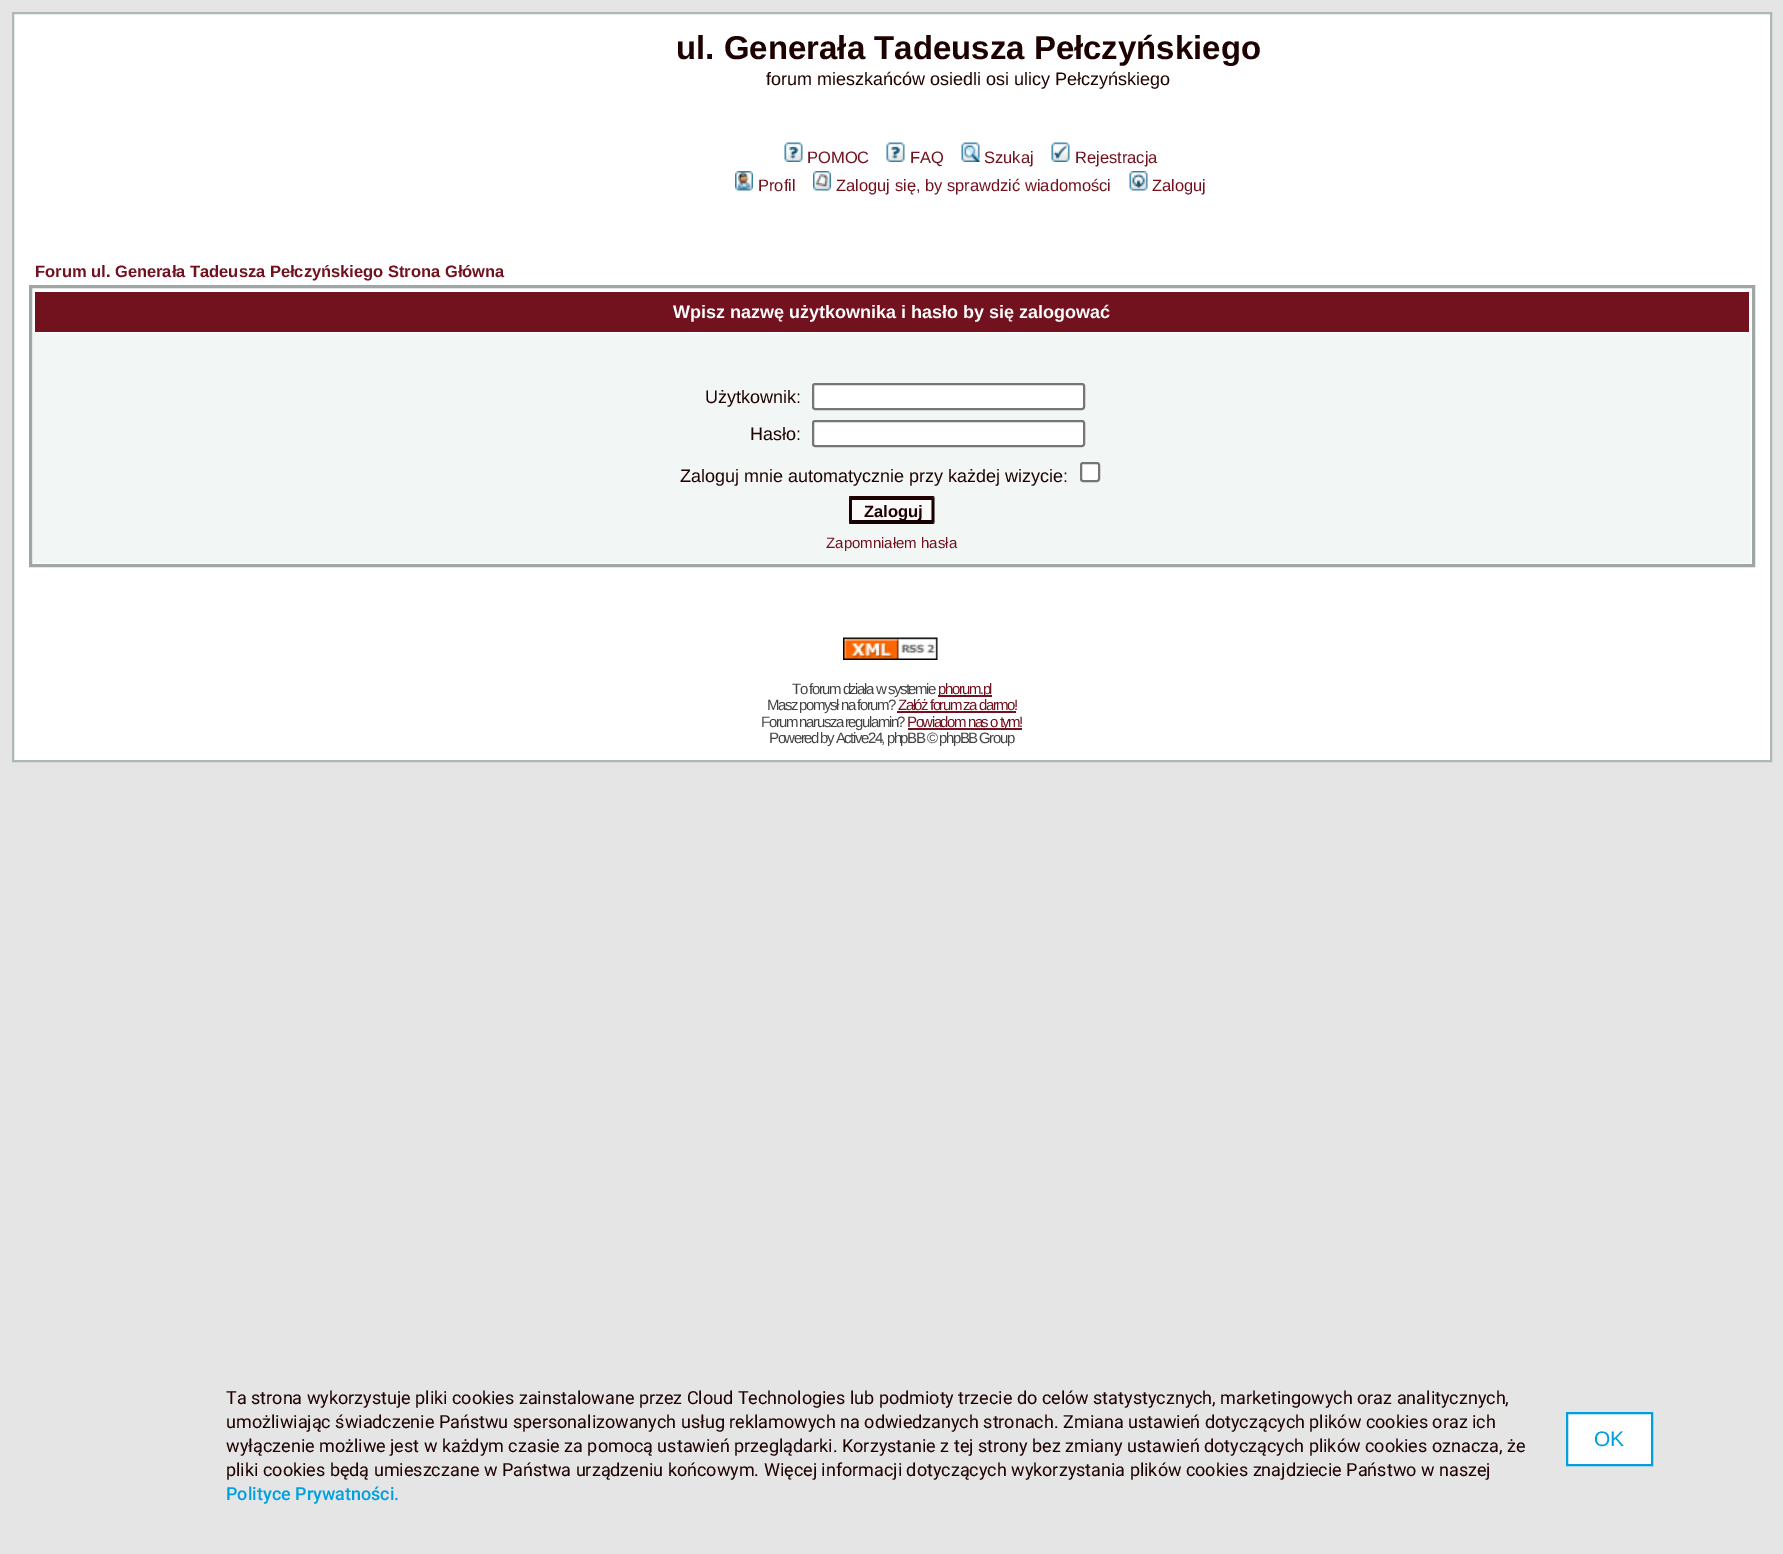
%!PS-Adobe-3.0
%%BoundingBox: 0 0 1783 1554
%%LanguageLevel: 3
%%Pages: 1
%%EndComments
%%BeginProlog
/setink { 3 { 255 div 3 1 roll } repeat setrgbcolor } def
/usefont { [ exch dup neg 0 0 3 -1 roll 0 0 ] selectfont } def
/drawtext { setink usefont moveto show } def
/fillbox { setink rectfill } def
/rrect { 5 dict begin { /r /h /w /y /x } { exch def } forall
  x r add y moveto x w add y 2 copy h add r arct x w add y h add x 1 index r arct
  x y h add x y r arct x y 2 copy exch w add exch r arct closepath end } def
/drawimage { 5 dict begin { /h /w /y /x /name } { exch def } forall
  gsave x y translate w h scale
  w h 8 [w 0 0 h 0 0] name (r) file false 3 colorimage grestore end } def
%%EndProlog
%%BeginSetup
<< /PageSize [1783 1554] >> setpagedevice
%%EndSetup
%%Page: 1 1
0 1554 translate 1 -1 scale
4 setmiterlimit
0 0 1783 1554 229 229 229 fillbox
255 255 255 setink
13 13 moveto 1771 13 lineto 1771 761 lineto 13 761 lineto closepath gsave fill grestore
172 186 181 setink
2 setlinewidth
stroke
(ul. Generała Tadeusza Pełczyńskiego) 676 59 /LiberationSans-Bold 33 30 1 1 drawtext
(forum mieszkańców osiedli osi ulicy Pełczyńskiego) 766 85 /LiberationSans-Regular 18 30 1 1 drawtext
(assets/img1.rgb) 784 142 19 20 drawimage
(POMOC) 807 163 /LiberationSans-Regular 16.5 114 18 30 drawtext
(assets/img1.rgb) 886 142 19 20 drawimage
(FAQ) 910 163 /LiberationSans-Regular 16.5 114 18 30 drawtext
(assets/img2.rgb) 961 142 19 20 drawimage
(Szukaj) 984 163 /LiberationSans-Regular 16.5 114 18 30 drawtext
(assets/img3.rgb) 1051 142 19 20 drawimage
(Rejestracja) 1075 163 /LiberationSans-Regular 16.5 114 18 30 drawtext
(assets/img4.rgb) 735 171 18 20 drawimage
(Profil) 758 191 /LiberationSans-Regular 16.5 114 18 30 drawtext
(assets/img5.rgb) 813 171 18 20 drawimage
(Zaloguj się, by sprawdzić wiadomości) 836 191 /LiberationSans-Regular 16.5 114 18 30 drawtext
(assets/img6.rgb) 1129 171 19 20 drawimage
(Zaloguj) 1152 191 /LiberationSans-Regular 16.5 114 18 30 drawtext
(Forum ul. Generała Tadeusza Pełczyńskiego Strona Główna) 35 277 /LiberationSans-Bold 16.5 114 18 30 drawtext
159 167 164 setink
3 setlinewidth
30.5 286.5 1723 279 rectstroke
35 292 1714 40 114 18 30 fillbox
(Wpisz nazwę użytkownika i hasło by się zalogować) 673 318 /LiberationSans-Bold 18 255 255 255 drawtext
33 333 1718 230 242 246 244 fillbox
(Użytkownik:) 705 403 /LiberationSans-Regular 18 30 1 1 drawtext
255 255 255 setink
813 384 271 25 2 rrect gsave fill grestore
118 118 118 setink
2 setlinewidth
stroke
(Hasło:) 750 440 /LiberationSans-Regular 18 30 1 1 drawtext
255 255 255 setink
813 421 271 25 2 rrect gsave fill grestore
118 118 118 setink
stroke
(Zaloguj mnie automatycznie przy każdej wizycie:) 680 482 /LiberationSans-Regular 18 30 1 1 drawtext
255 255 255 setink
1081 463 18 18 2 rrect gsave fill grestore
118 118 118 setink
stroke
849 497 86 27 250 250 250 fillbox
30 1 1 setink
849 496 moveto 934 496 lineto 932 500 lineto 852 500 lineto closepath fill
20 1 1 setink
934.5 496.5 moveto 934.5 523.5 lineto 931.5 520.5 lineto 931.5 499.5 lineto closepath fill
934 524 moveto 849 524 lineto 852 520 lineto 932 520 lineto closepath fill
30 1 1 setink
849 523.5 moveto 849 496.5 lineto 852 499.5 lineto 852 520.5 lineto closepath fill
(Zaloguj) 864 517 /LiberationSans-Bold 16.5 30 1 1 drawtext
(Zapomniałem hasła) 826 548 /LiberationSans-Regular 15 114 18 30 drawtext
(assets/img7.rgb) 843 637 95 23 drawimage
68 68 68 setink
792 694 moveto -1.5 0 (To forum działa w systemie) ashow
938 695 54 2 114 18 30 fillbox
938 694 moveto -1.5 0 (phorum.pl) ashow
68 68 68 setink
767 710 moveto -1.5 0 (Masz pomysł na forum?) ashow
897 711 119 2 114 18 30 fillbox
898 710 moveto -1.5 0 (Załóż forum za darmo!) ashow
68 68 68 setink
761 727 moveto -1.5 0 (Forum narusza regulamin?) ashow
908 728 114 2 114 18 30 fillbox
907 727 moveto -1.5 0 (Powiadom nas o tym!) ashow
68 68 68 setink
769 743 moveto -1.5 0 (Powered by Active24, phpBB © phpBB Group) ashow
(Ta strona wykorzystuje pliki cookies zainstalowane przez Cloud Technologies lub podmioty trzecie do celów statystycznych, marketingowych oraz analitycznych,) 226 1404 /Roboto-Regular 18 30 1 1 drawtext
(umożliwiając świadczenie Państwu spersonalizowanych usług reklamowych na odwiedzanych stronach. Zmiana ustawień dotyczących plików cookies oraz ich) 226 1428 /Roboto-Regular 18 30 1 1 drawtext
(wyłączenie możliwe jest w każdym czasie za pomocą ustawień przeglądarki. Korzystanie z tej strony bez zmiany ustawień dotyczących plików cookies oznacza, że) 226 1452 /Roboto-Regular 18 30 1 1 drawtext
(pliki cookies będą umieszczane w Państwa urządzeniu końcowym. Więcej informacji dotyczących wykorzystania plików cookies znajdziecie Państwo w naszej) 226 1476 /Roboto-Regular 18 30 1 1 drawtext
(Polityce Prywatności.) 226 1500 /Roboto-Medium 18 0 159 223 drawtext
255 255 255 setink
1567 1413 moveto 1652 1413 lineto 1652 1465 lineto 1567 1465 lineto closepath gsave fill grestore
0 159 223 setink
stroke
(OK) 1594 1446 /LiberationSans-Regular 21 0 159 223 drawtext
showpage
%%EOF
